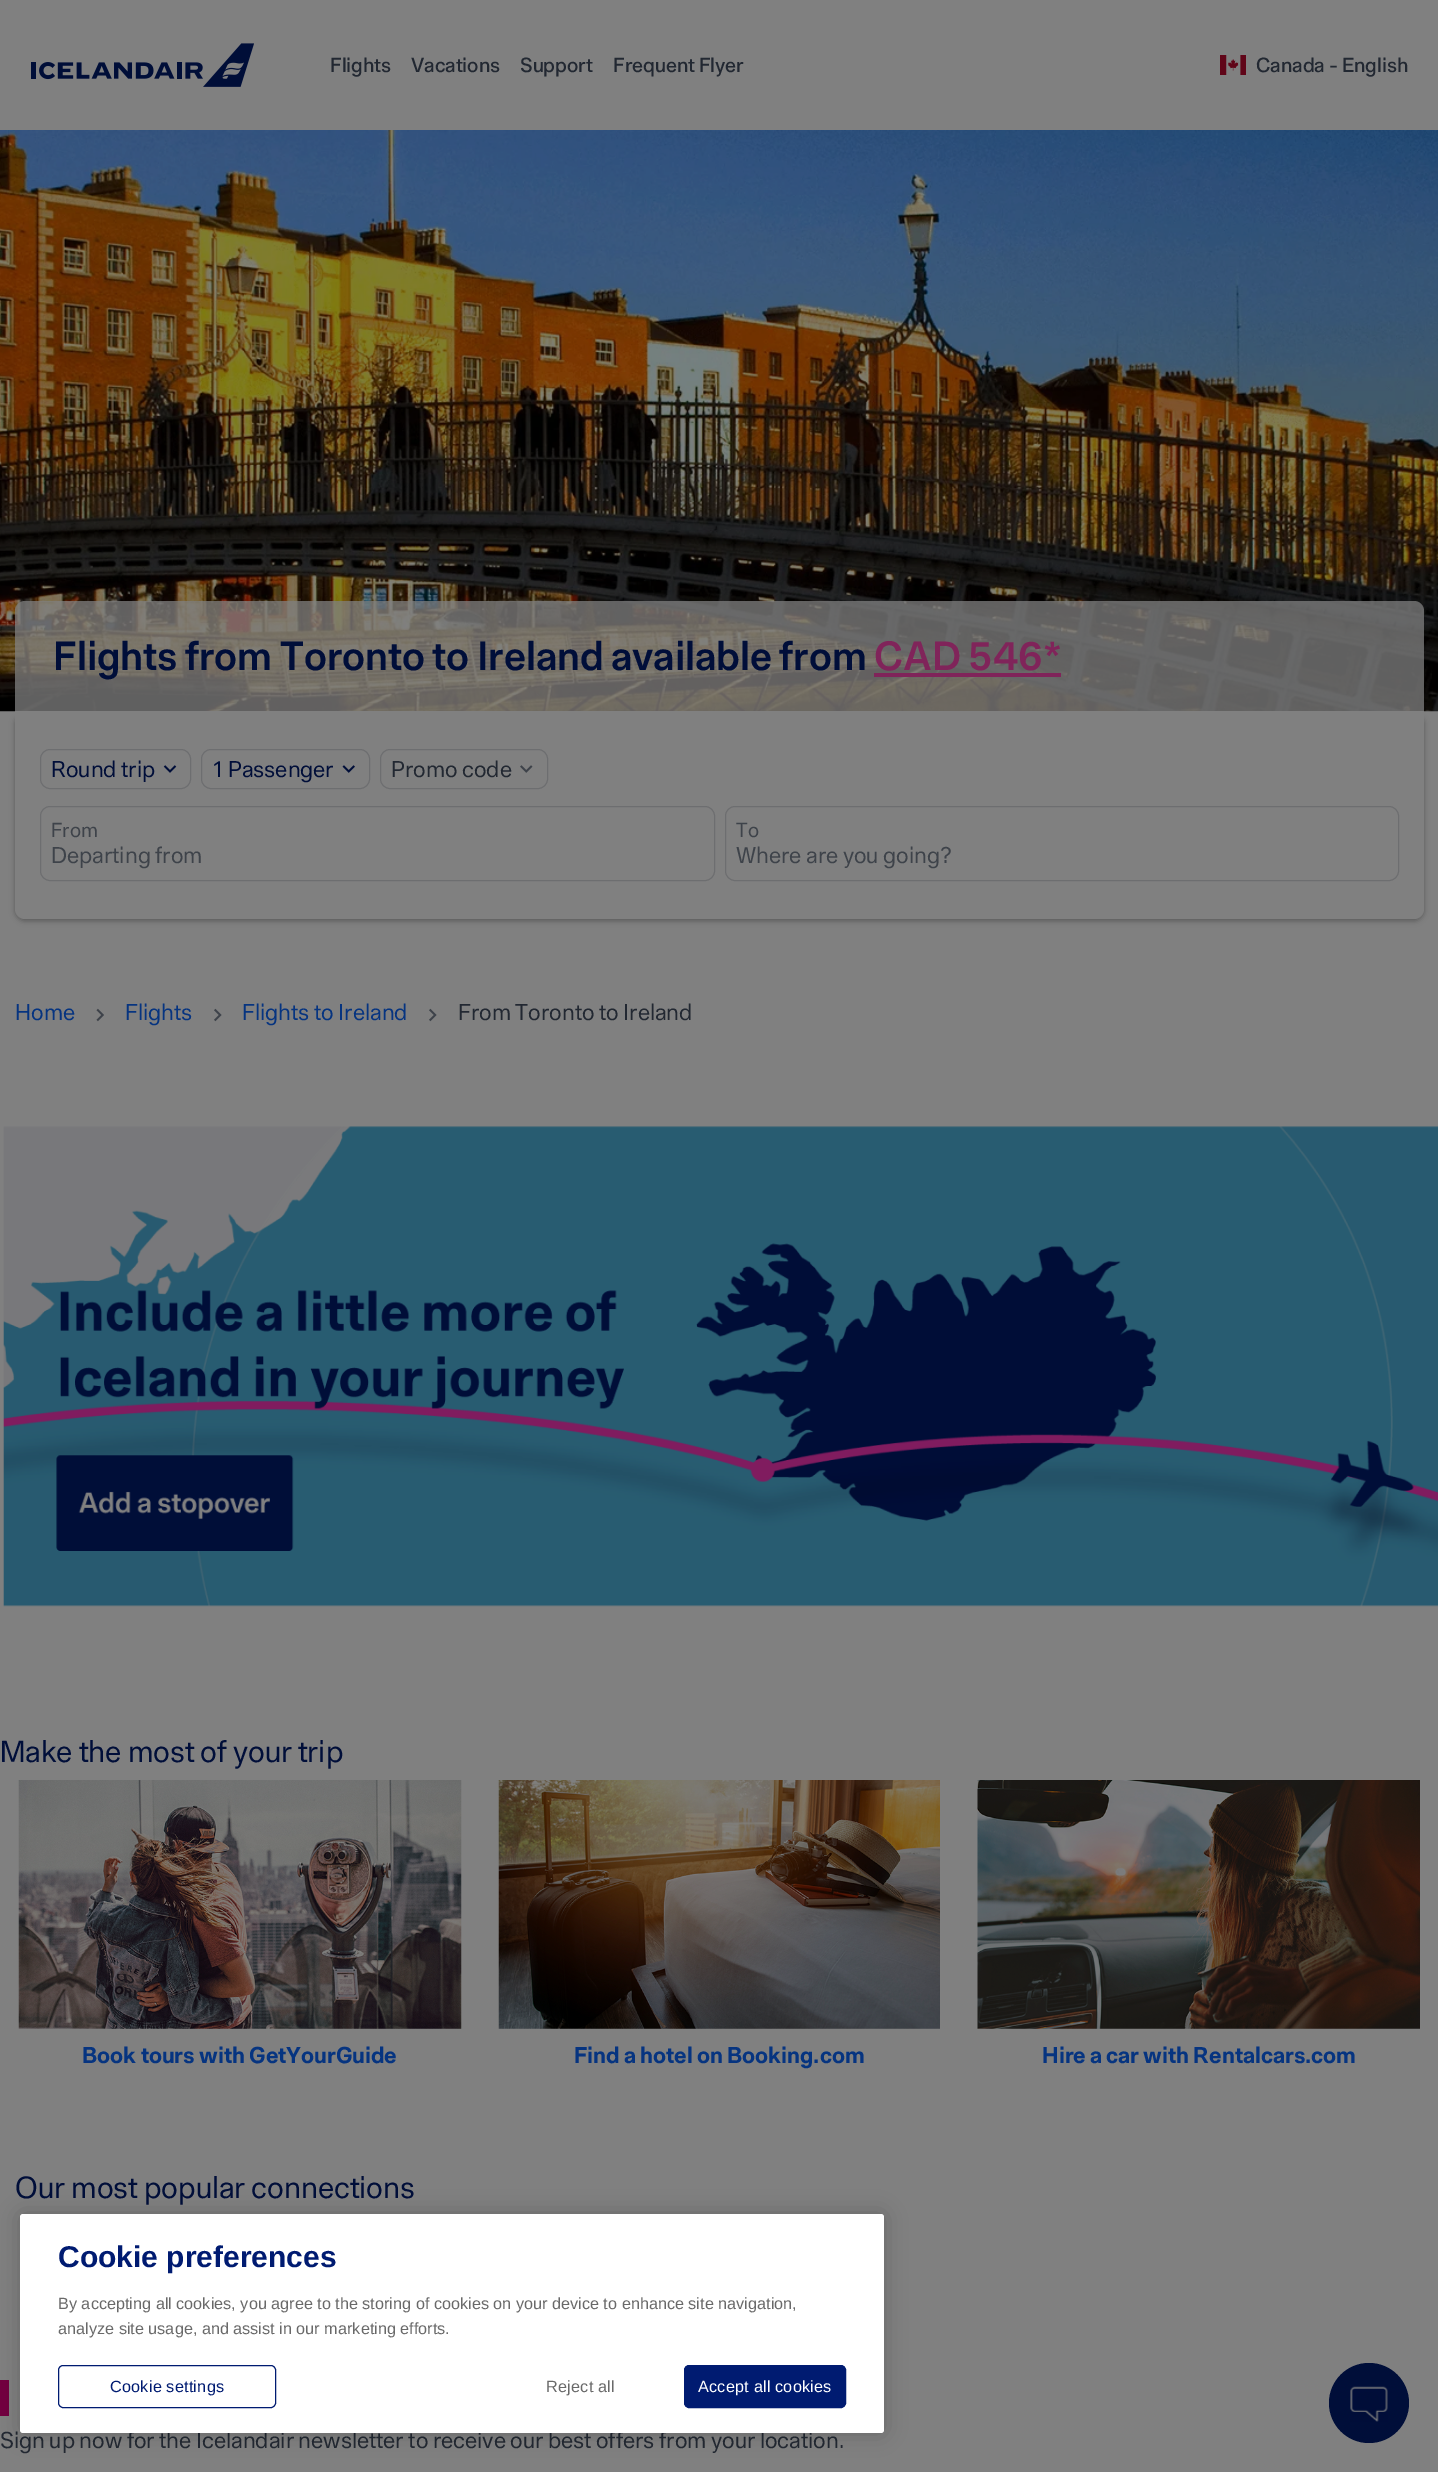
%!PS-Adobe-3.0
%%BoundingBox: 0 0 1438 2472
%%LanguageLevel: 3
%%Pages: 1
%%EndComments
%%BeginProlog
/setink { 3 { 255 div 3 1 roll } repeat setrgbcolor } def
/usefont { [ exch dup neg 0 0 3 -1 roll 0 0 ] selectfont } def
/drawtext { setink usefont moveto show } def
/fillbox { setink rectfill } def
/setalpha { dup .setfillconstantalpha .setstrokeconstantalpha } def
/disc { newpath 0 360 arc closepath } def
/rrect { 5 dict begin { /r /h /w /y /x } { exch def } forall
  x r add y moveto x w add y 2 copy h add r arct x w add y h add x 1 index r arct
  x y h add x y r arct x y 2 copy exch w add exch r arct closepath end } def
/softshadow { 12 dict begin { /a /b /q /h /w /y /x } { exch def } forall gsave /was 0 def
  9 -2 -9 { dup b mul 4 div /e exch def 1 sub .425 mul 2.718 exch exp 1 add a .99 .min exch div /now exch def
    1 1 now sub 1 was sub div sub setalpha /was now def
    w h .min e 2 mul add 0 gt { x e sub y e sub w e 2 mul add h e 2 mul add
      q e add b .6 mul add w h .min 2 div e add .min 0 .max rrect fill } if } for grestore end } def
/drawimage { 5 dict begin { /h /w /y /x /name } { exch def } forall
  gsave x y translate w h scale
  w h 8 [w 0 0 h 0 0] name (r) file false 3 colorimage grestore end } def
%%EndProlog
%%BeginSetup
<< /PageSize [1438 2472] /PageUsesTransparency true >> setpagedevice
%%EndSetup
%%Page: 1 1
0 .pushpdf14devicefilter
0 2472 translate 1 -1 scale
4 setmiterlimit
0 0 1438 2472 128 128 128 fillbox
(assets/img1.rgb) 31 43 223 44 drawimage
(Flights) 330 72 /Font-Medium 20 34 40 50 drawtext
(Vacations) 411 72 /Font-Medium 20 34 40 50 drawtext
(Support) 520 72 /Font-Medium 20 34 40 50 drawtext
(Frequent Flyer) 613 72 /Font-Medium 20 34 40 50 drawtext
(assets/img2.rgb) 1220 55 26 20 drawimage
(Canada - English) 1256 72 /Font-Medium 20 34 40 50 drawtext
(assets/img3.rgb) 0 130 1438 582 drawimage
0 0 0 setink
15 714 1409 207 10 3 0.3 softshadow
0.75 setalpha
128 128 128 setink
25 601 moveto 1414 601 lineto 1419.5 601 1424 605.5 1424 611 curveto 1424 711 lineto 15 711 lineto 15 611 lineto 15 605.5 19.5 601 25 601 curveto closepath fill
1 setalpha
(Flights from Toronto to Ireland available from) 53 670 /Font-SemiBold 40 0 14 57 drawtext
(CAD 546*) 874 670 /Font-SemiBold 40 128 36 90 drawtext
874 673 187 4 128 36 90 fillbox
128 128 128 setink
15 711 moveto 1424 711 lineto 1424 909 lineto 1424 914.5 1419.5 919 1414 919 curveto 25 919 lineto 19.5 919 15 914.5 15 909 curveto closepath fill
109 110 112 setink
40.5 749.5 150 39 9.5 rrect stroke
(Round trip) 51 777 /Font-Regular 22.5 0 14 57 drawtext
(assets/img4.rgb) 163 765 14 8 drawimage
109 110 112 setink
201.5 749.5 168 39 9.5 rrect stroke
(1 Passenger) 213 777 /Font-Regular 22.5 0 14 57 drawtext
(assets/img5.rgb) 342 765 13 8 drawimage
109 110 112 setink
380.5 749.5 167 39 9.5 rrect stroke
(Promo code) 391 777 /Font-Regular 22.5 34 40 50 drawtext
(assets/img6.rgb) 520 765 13 8 drawimage
109 110 112 setink
40.5 806.5 674 74 9.5 rrect stroke
(From) 51 837 /Font-Regular 20 62 67 74 drawtext
(Departing from) 51 863 /Font-Regular 22.5 62 67 74 drawtext
109 110 112 setink
725.5 806.5 673 74 9.5 rrect stroke
(To) 736 837 /Font-Regular 20 62 67 74 drawtext
(Where are you going?) 736 863 /Font-Regular 22.5 62 67 74 drawtext
(Home) 15 1020 /Font-Regular 22.5 6 52 128 drawtext
(assets/img7.rgb) 96 1008 8 14 drawimage
(Flights) 125 1020 /Font-Regular 22.5 6 52 128 drawtext
(assets/img8.rgb) 214 1008 8 14 drawimage
(Flights to Ireland) 242 1020 /Font-Regular 22.5 6 52 128 drawtext
(assets/img8.rgb) 429 1008 8 14 drawimage
(From Toronto to Ireland) 458 1020 /Font-Regular 22.5 34 40 50 drawtext
(assets/img9.rgb) 3 1126 1435 481 drawimage
(Make the most of your trip) 0 1762 /Font-Regular 30 0 14 57 drawtext
(assets/img10.rgb) 18 1780 444 249 drawimage
(Book tours with GetYourGuide) 82 2063 /Font-Bold 22.5 6 52 128 drawtext
(assets/img11.rgb) 498 1780 442 249 drawimage
(Find a hotel on Booking.com) 574 2063 /Font-Bold 22.5 6 52 128 drawtext
(assets/img12.rgb) 977 1780 443 249 drawimage
(Hire a car with Rentalcars.com) 1042 2063 /Font-Bold 22.5 6 52 128 drawtext
(Our most popular connections) 15 2198 /Font-Regular 30 0 14 57 drawtext
0 2380 9 36 115 0 63 fillbox
(Sign up now for the Icelandair newsletter to receive our best offers from your location.) 0 2448 /Font-Regular 22.5 34 40 50 drawtext
0 0 0 setink
20 2214 864 219 3 11 0.2 softshadow
255 255 255 setink
20 2214 864 219 3 rrect fill
(Cookie preferences) 58 2267 /LiberationSans-Bold 30 0 27 113 drawtext
(By accepting all cookies, you agree to the storing of cookies on your device to enhance site navigation,) 58 2309 /LiberationSans-Regular 16.25 105 105 105 drawtext
(analyze site usage, and assist in our marketing efforts.) 58 2334 /LiberationSans-Regular 16.25 105 105 105 drawtext
0 27 113 setink
58.5 2365.5 217 42 4.5 rrect stroke
110 2392 moveto 0.2 0 (Cookie settings) ashow
105 105 105 setink
546 2392 moveto 0.2 0 (Reject all) ashow
0 27 113 setink
684.5 2365.5 161 42 4.5 rrect gsave fill grestore
stroke
255 255 255 setink
698 2392 moveto 0.2 0 (Accept all cookies) ashow
0 14 57 setink
1369 2403 40 disc fill
(assets/img13.rgb) 1350 2386 38 36 drawimage
.poppdf14devicefilter showpage
%%EOF
